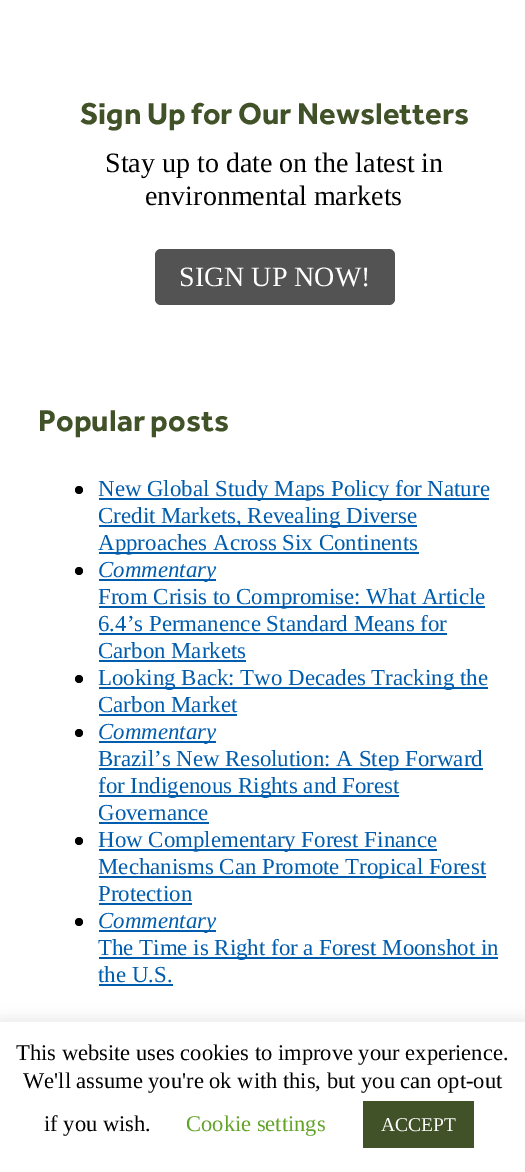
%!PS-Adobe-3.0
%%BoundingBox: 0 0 525 1172
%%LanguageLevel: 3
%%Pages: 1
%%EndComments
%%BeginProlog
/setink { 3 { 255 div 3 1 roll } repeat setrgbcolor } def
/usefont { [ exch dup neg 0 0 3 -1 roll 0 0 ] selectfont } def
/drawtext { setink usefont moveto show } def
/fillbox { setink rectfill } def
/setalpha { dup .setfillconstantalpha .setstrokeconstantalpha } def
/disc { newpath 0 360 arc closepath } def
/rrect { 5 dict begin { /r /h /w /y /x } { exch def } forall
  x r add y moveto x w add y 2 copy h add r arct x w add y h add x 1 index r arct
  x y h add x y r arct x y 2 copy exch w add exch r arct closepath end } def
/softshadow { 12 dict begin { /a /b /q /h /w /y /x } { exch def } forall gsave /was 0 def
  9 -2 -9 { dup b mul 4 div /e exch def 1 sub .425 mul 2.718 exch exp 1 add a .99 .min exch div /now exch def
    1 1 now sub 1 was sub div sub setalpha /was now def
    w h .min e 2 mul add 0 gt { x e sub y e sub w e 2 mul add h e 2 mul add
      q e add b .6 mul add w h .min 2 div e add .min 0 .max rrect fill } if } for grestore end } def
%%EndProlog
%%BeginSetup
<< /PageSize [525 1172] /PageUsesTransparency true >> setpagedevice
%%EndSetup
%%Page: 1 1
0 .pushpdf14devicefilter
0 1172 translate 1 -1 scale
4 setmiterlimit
0 0 525 1172 255 255 255 fillbox
(Sign Up for Our Newsletters) 80 124 /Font-Bold 31.1 65 82 40 drawtext
(Stay up to date on the latest in) 105 172 /LiberationSerif-Regular 28 0 0 0 drawtext
(environmental markets) 145 205 /LiberationSerif-Regular 28 0 0 0 drawtext
83 83 83 setink
155 249 240 56 6 rrect fill
(SIGN UP NOW!) 179 286 /LiberationSerif-Regular 28 255 255 255 drawtext
(Popular posts) 38 431 /Font-Bold 31.1 65 82 40 drawtext
0 0 0 setink
79 490 4 disc fill
99 498 390 2 0 92 173 fillbox
(New Global Study Maps Policy for Nature) 98 496 /LiberationSerif-Regular 22.9 0 92 173 drawtext
99 525 318 2 0 92 173 fillbox
(Credit Markets, Revealing Diverse) 98 523 /LiberationSerif-Regular 22.9 0 92 173 drawtext
99 552 320 2 0 92 173 fillbox
(Approaches Across Six Continents) 98 550 /LiberationSerif-Regular 22.9 0 92 173 drawtext
0 0 0 setink
79 571 4 disc fill
99 579 117 2 0 92 173 fillbox
(Commentary) 98 577 /LiberationSerif-Italic 22.9 0 92 173 drawtext
99 606 386 2 0 92 173 fillbox
(From Crisis to Compromise: What Article) 98 604 /LiberationSerif-Regular 22.9 0 92 173 drawtext
(6.4’s Permanence Standard Means for) 98 631 /LiberationSerif-Regular 22.9 0 92 173 drawtext
99 633 348 2 0 92 173 fillbox
(Carbon Markets) 98 658 /LiberationSerif-Regular 22.9 0 92 173 drawtext
99 660 147 2 0 92 173 fillbox
0 0 0 setink
79 679 4 disc fill
99 687 389 2 0 92 173 fillbox
(Looking Back: Two Decades Tracking the) 98 685 /LiberationSerif-Regular 22.9 0 92 173 drawtext
(Carbon Market) 98 712 /LiberationSerif-Regular 22.9 0 92 173 drawtext
99 714 138 2 0 92 173 fillbox
0 0 0 setink
79 733 4 disc fill
99 741 117 2 0 92 173 fillbox
(Commentary) 98 739 /LiberationSerif-Italic 22.9 0 92 173 drawtext
99 768 384 2 0 92 173 fillbox
(Brazil’s New Resolution: A Step Forward) 98 766 /LiberationSerif-Regular 22.9 0 92 173 drawtext
99 795 300 2 0 92 173 fillbox
(for Indigenous Rights and Forest) 98 793 /LiberationSerif-Regular 22.9 0 92 173 drawtext
(Governance) 98 820 /LiberationSerif-Regular 22.9 0 92 173 drawtext
99 822 110 2 0 92 173 fillbox
0 0 0 setink
79 841 4 disc fill
99 849 338 2 0 92 173 fillbox
(How Complementary Forest Finance) 98 847 /LiberationSerif-Regular 22.9 0 92 173 drawtext
99 876 387 2 0 92 173 fillbox
(Mechanisms Can Promote Tropical Forest) 98 874 /LiberationSerif-Regular 22.9 0 92 173 drawtext
(Protection) 98 901 /LiberationSerif-Regular 22.9 0 92 173 drawtext
99 903 93 2 0 92 173 fillbox
0 0 0 setink
79 922 4 disc fill
99 930 117 2 0 92 173 fillbox
(Commentary) 98 928 /LiberationSerif-Italic 22.9 0 92 173 drawtext
99 957 399 2 0 92 173 fillbox
(The Time is Right for a Forest Moonshot in) 98 955 /LiberationSerif-Regular 22.9 0 92 173 drawtext
(the U.S.) 98 982 /LiberationSerif-Regular 22.9 0 92 173 drawtext
99 984 74 2 0 92 173 fillbox
172 171 171 setink
0 1020 525 152 0 7.5 0.3 softshadow
0 1022 525 150 255 255 255 fillbox
(This website uses cookies to improve your experience.) 16 1060 /LiberationSerif-Regular 22.5 0 0 0 drawtext
(We'll assume you're ok with this, but you can opt-out) 23 1088 /LiberationSerif-Regular 22.5 0 0 0 drawtext
(if you wish.) 44 1131 /LiberationSerif-Regular 22.5 0 0 0 drawtext
(Cookie settings) 186 1131 /LiberationSerif-Regular 22.5 98 163 41 drawtext
363 1101 111 47 65 82 40 fillbox
(ACCEPT) 381 1131 /LiberationSerif-Regular 19.5 255 255 255 drawtext
.poppdf14devicefilter showpage
%%EOF
